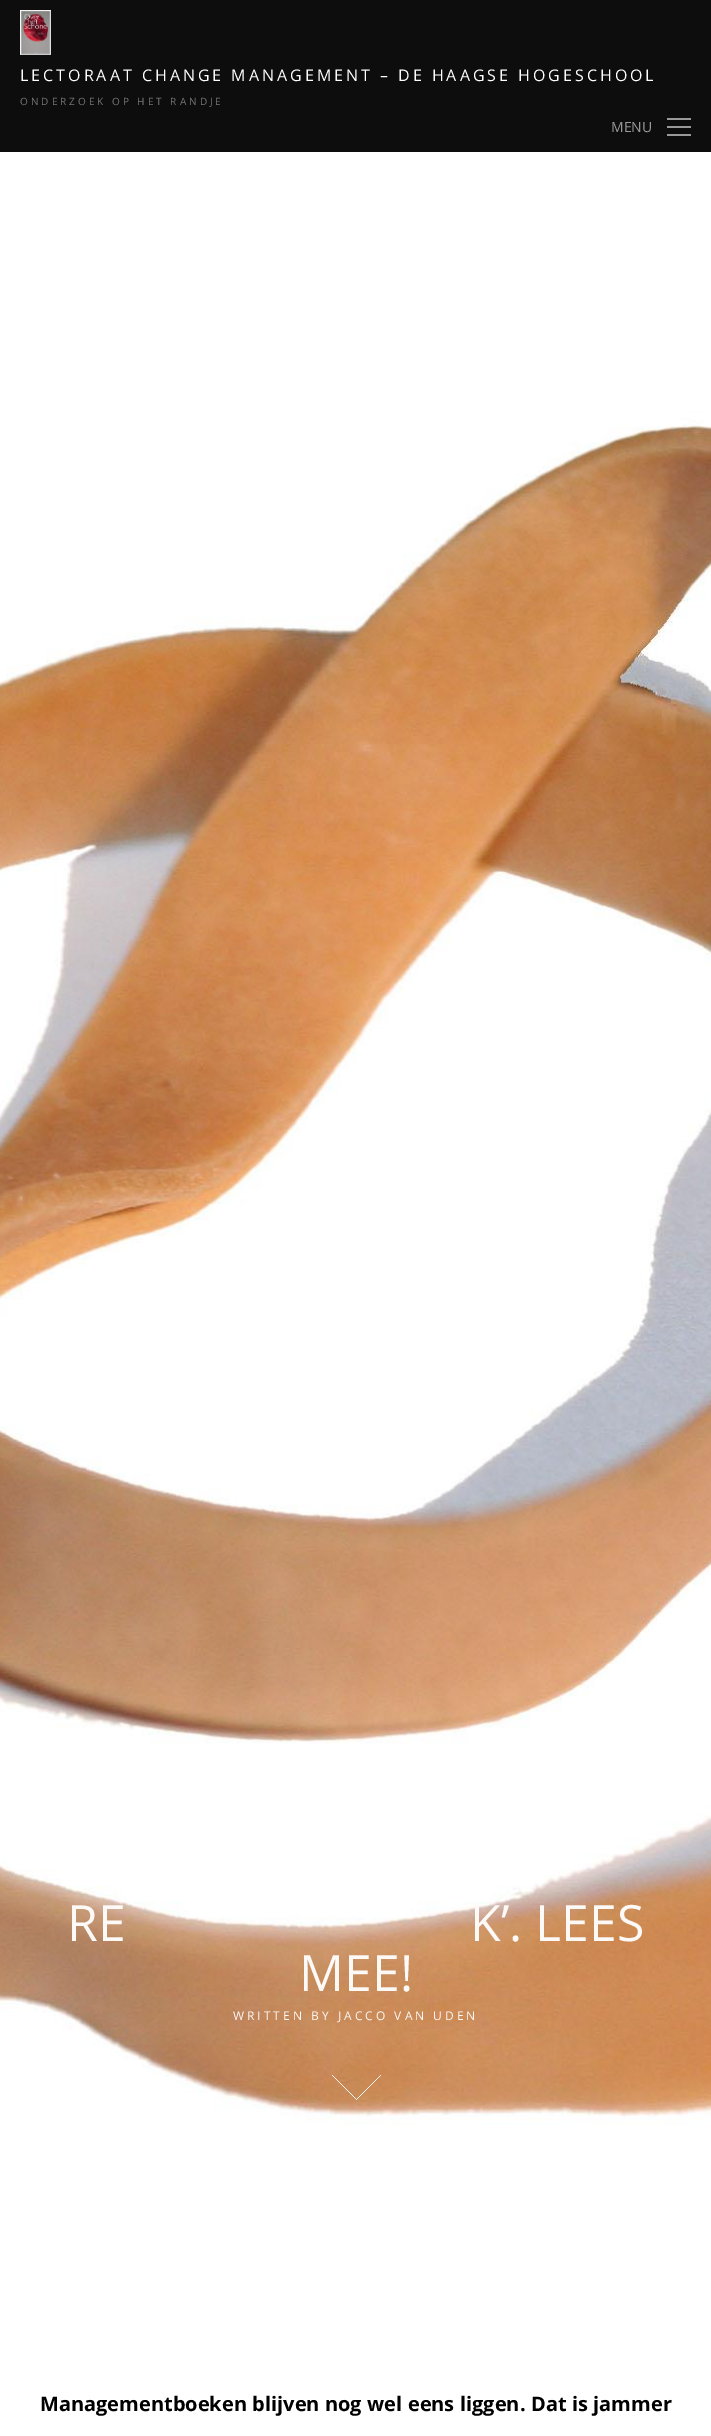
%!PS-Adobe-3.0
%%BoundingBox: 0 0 711 2436
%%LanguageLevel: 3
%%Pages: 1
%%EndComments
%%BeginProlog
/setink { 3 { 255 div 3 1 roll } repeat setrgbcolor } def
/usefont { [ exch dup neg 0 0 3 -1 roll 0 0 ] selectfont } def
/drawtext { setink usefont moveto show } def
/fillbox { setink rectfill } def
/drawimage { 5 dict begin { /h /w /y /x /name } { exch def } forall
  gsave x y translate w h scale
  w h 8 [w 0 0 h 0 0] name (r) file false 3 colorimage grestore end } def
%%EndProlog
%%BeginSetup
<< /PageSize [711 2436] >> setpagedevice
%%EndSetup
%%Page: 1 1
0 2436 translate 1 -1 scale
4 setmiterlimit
0 0 711 2436 255 255 255 fillbox
0 0 711 152 13 13 13 fillbox
(assets/img1.rgb) 20 10 31 45 drawimage
/OpenSans-Regular 16 usefont
255 255 255 setink
20 81 moveto 3 0 (LECTORAAT CHANGE MANAGEMENT – DE HAAGSE HOGESCHOOL) ashow
/OpenSans-Regular 10 usefont
119 119 119 setink
20 105 moveto 3 0 (ONDERZOEK OP HET RANDJE) ashow
(MENU) 611 132 /OpenSans-Regular 14 153 153 153 drawtext
667 118 24 2 153 153 153 fillbox
667 126 24 2 153 153 153 fillbox
667 134 24 2 153 153 153 fillbox
(assets/img2.rgb) 0 152 711 2194 drawimage
(assets/img3.rgb) 332 2075 49 25 drawimage
(RE) 67 1941 /OpenSans-Regular 50 252 249 247 drawtext
(K’. LEES) 470 1941 /OpenSans-Regular 50 252 249 247 drawtext
(MEE!) 299 1991 /OpenSans-Regular 50 252 249 247 drawtext
/OpenSans-Regular 12 usefont
233 2020 moveto 3 0 (WRITTEN BY) ashow
338 2020 moveto 3 0 (JACCO VAN UDEN) ashow
/OpenSans-Bold 20 usefont
0 0 0 setink
40 2411 moveto 0.25 0 32 (Managementboeken blijven nog wel eens liggen. Dat is jammer) widthshow
showpage
%%EOF
